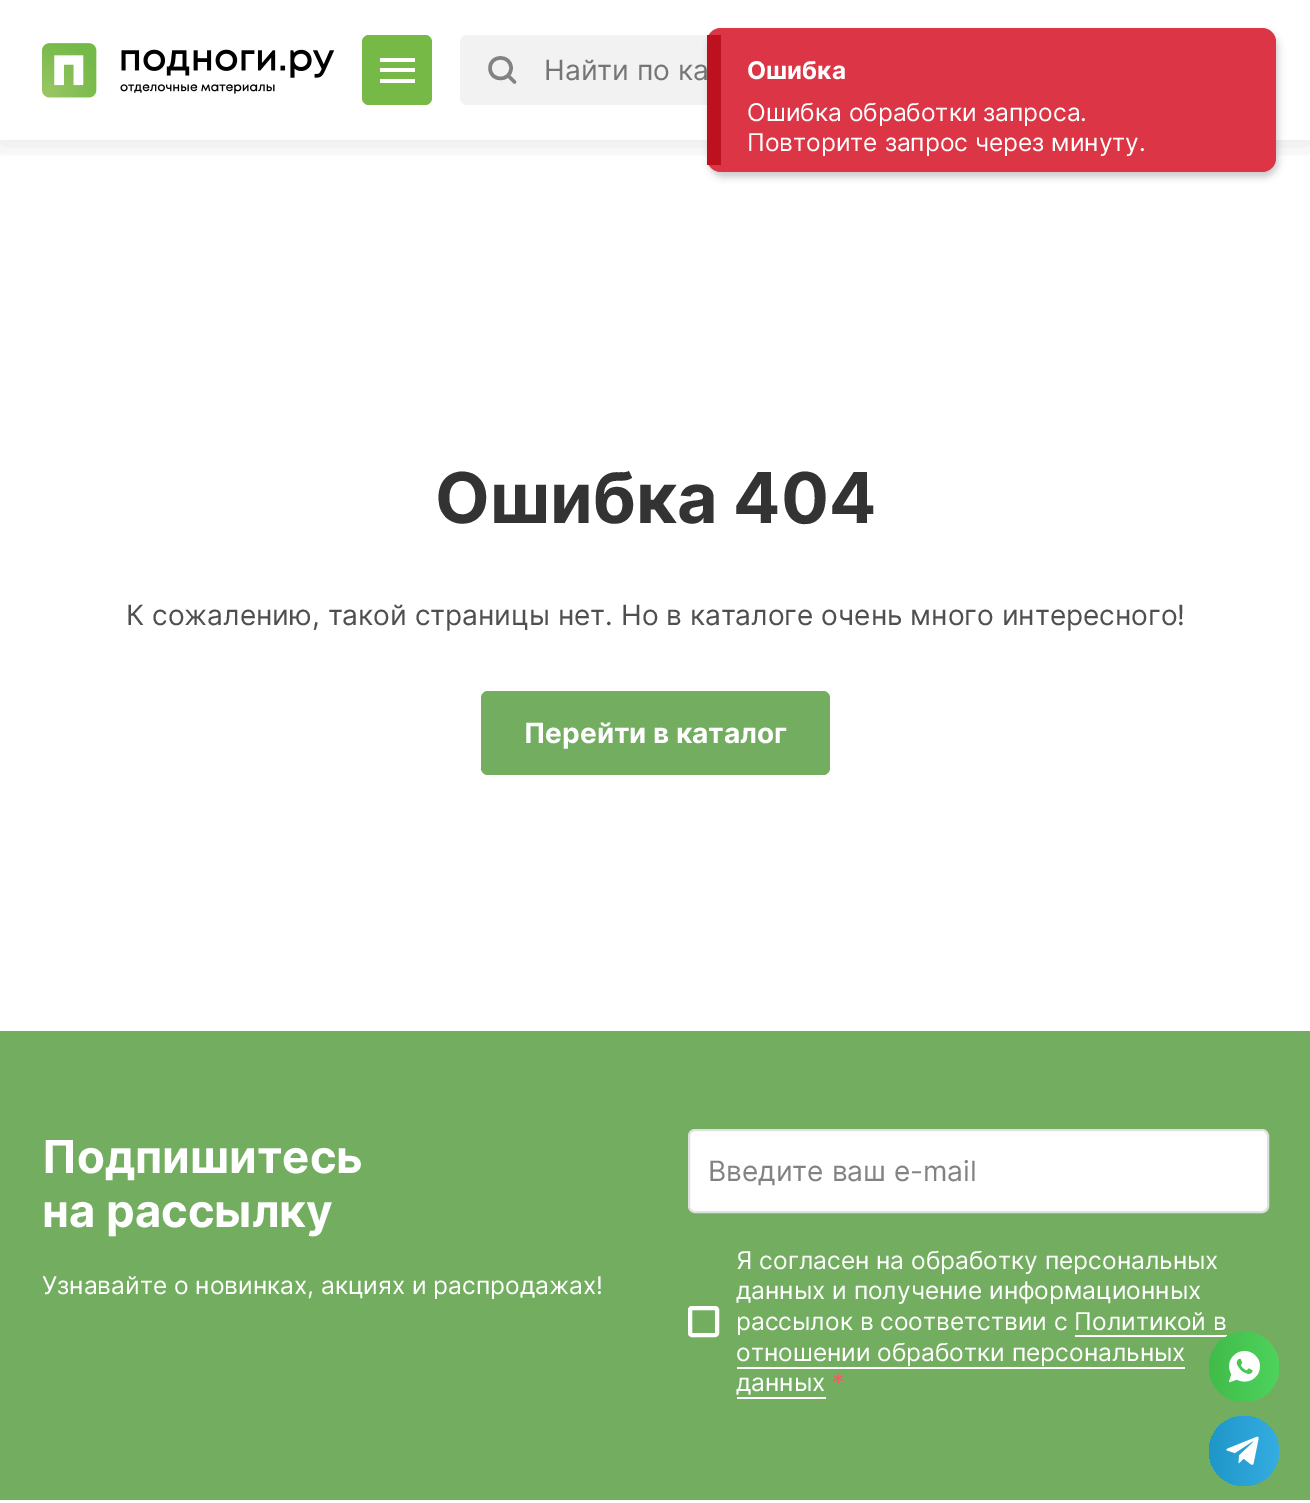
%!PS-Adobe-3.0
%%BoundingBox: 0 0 1310 1503
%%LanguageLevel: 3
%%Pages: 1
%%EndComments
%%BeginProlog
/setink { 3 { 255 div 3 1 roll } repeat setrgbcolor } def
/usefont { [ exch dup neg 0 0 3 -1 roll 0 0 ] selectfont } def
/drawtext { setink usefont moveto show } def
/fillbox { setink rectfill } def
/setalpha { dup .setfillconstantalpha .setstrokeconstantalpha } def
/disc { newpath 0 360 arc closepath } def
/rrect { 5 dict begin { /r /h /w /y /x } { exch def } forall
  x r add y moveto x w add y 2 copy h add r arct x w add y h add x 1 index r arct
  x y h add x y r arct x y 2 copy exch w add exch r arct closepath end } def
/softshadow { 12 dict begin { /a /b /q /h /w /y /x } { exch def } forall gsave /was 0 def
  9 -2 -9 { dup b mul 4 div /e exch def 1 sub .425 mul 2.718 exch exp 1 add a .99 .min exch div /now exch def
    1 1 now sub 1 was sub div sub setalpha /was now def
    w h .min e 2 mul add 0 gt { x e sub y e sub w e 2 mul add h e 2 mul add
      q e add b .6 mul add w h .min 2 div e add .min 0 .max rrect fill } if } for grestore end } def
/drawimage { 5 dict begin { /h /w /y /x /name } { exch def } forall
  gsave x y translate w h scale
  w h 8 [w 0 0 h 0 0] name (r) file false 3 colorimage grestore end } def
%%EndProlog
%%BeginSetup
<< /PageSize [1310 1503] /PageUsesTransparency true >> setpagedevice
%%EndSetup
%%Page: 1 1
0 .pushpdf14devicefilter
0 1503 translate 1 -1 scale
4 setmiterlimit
0 0 1310 1503 255 255 255 fillbox
gsave
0 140 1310 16 rectclip
0 0 0 setink
0 4 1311 140 0 14 0.1 softshadow
grestore
(assets/img1.rgb) 42 43 292 55 drawimage
118 185 71 setink
362 35 70 70 7 rrect fill
380 58 35 4 255 255 255 fillbox
380 68 35 4 255 255 255 fillbox
380 79 35 4 255 255 255 fillbox
242 242 242 setink
460 35 515 70 7 rrect fill
130 130 130 setink
3.5 setlinewidth
1 setlinecap
1 setlinejoin
508.5 76 moveto 514.5 82 lineto 490 68 moveto 490 82 511 82 511 68 curveto 511 54.5 490 54.5 490 68 curveto closepath stroke
(Найти по ка) 544 80 /Inter-Regular 28 117 117 117 drawtext
0 0 0 setink
709 33 569 144 14 3.5 0.2 softshadow
220 53 69 setink
707 28 569 144 14 rrect fill
707 35 14 130 189 17 32 fillbox
(Ошибка) 747 79 /Inter-Bold 24.5 255 255 255 drawtext
(Ошибка обработки запроса.) 747 121 /Inter-Regular 24.5 255 255 255 drawtext
(Повторите запрос через минуту.) 747 151 /Inter-Regular 24.5 255 255 255 drawtext
(Ошибка 404) 435 523 /Inter-Bold 70 51 51 51 drawtext
(К сожалению, такой страницы нет. Но в каталоге очень много интересного!) 126 625 /Inter-Regular 28 79 79 79 drawtext
115 174 96 setink
481 691 349 84 7 rrect fill
(Перейти в каталог) 524 743 /Inter-Bold 28 255 255 255 drawtext
0 1031 1310 469 115 174 96 fillbox
(Подпишитесь) 42 1173 /Inter-Bold 45.5 255 255 255 drawtext
(на рассылку) 42 1227 /Inter-Bold 45.5 255 255 255 drawtext
(Узнавайте о новинках, акциях и распродажах!) 42 1294 /Inter-Regular 24.5 255 255 255 drawtext
689 1130 579 82 6 rrect gsave fill grestore
224 224 224 setink
2 setlinewidth
0 setlinecap
0 setlinejoin
stroke
(Введите ваш e-mail) 708 1181 /Inter-Regular 28 130 130 130 drawtext
255 255 255 setink
4 setlinewidth
690 1308 27 27 2 rrect stroke
(Я согласен на обработку персональных) 736 1269 /Inter-Regular 24.5 255 255 255 drawtext
(данных и получение информационных) 736 1299 /Inter-Regular 24.5 255 255 255 drawtext
(рассылок в соответствии с Политикой в) 736 1330 /Inter-Regular 24.5 255 255 255 drawtext
1075 1335 152 2 255 255 255 fillbox
(отношении обработки персональных) 736 1361 /Inter-Regular 24.5 255 255 255 drawtext
(данных) 736 1391 /Inter-Regular 24.5 255 255 255 drawtext
737 1397 89 2 255 255 255 fillbox
(*) 832 1391 /Inter-Regular 24.5 255 85 99 drawtext
737 1367 448 2 255 255 255 fillbox
gsave 1244 1367 35 disc clip newpath
<< /ShadingType 2 /ColorSpace /DeviceRGB /Coords [1209 1367 1279 1367] /Extend [true true] /Function << /FunctionType 2 /Domain [0 1] /C0 [0.255 0.733 0.286] /C1 [0.306 0.827 0.365] /N 1 >> >> shfill grestore
(assets/img2.rgb) 1229 1351 31 32 drawimage
gsave 1244 1451 35 disc clip newpath
<< /ShadingType 2 /ColorSpace /DeviceRGB /Coords [1209 1451 1279 1451] /Extend [true true] /Function << /FunctionType 2 /Domain [0 1] /C0 [0.118 0.588 0.784] /C1 [0.212 0.678 0.882] /N 1 >> >> shfill grestore
(assets/img3.rgb) 1226 1436 33 29 drawimage
.poppdf14devicefilter showpage
%%EOF
